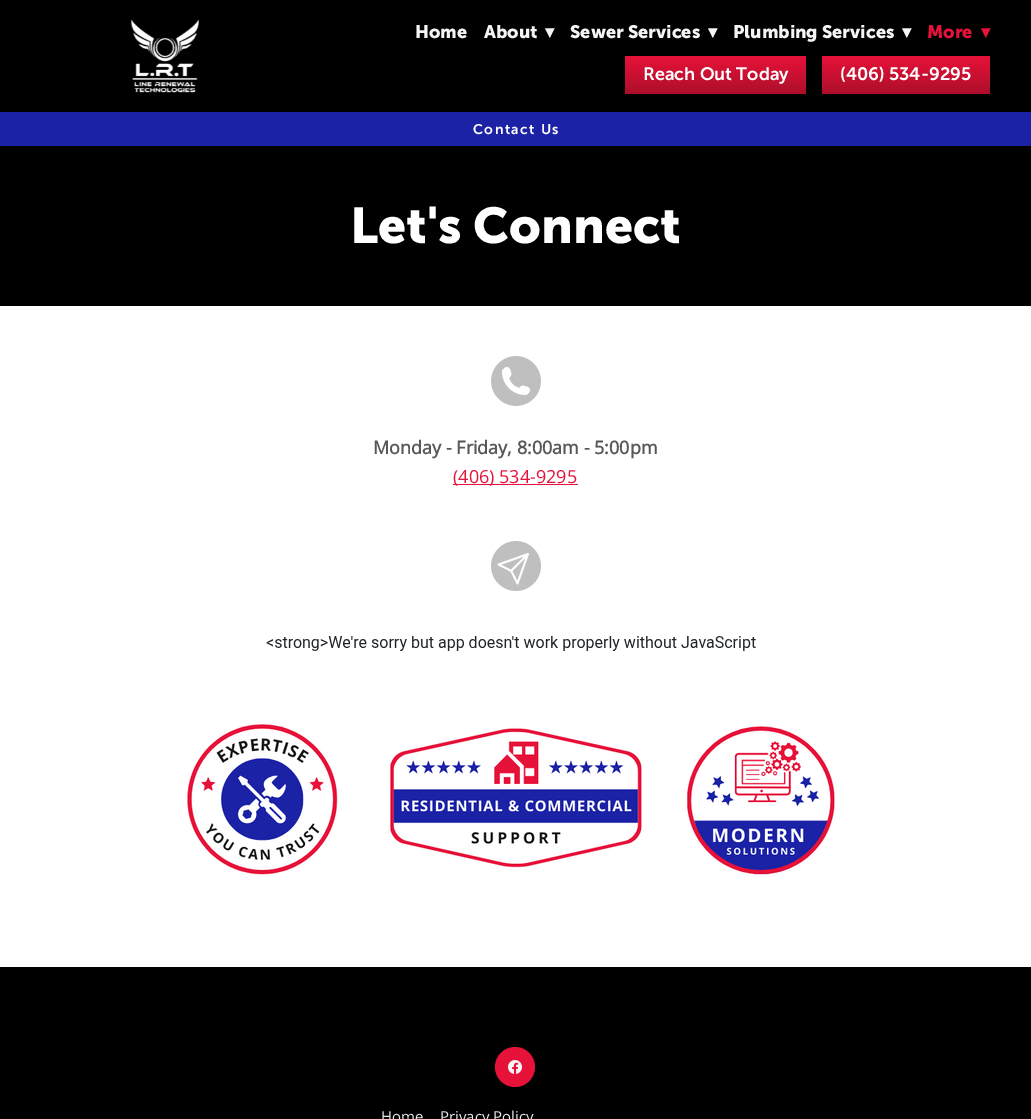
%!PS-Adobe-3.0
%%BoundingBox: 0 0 1031 1119
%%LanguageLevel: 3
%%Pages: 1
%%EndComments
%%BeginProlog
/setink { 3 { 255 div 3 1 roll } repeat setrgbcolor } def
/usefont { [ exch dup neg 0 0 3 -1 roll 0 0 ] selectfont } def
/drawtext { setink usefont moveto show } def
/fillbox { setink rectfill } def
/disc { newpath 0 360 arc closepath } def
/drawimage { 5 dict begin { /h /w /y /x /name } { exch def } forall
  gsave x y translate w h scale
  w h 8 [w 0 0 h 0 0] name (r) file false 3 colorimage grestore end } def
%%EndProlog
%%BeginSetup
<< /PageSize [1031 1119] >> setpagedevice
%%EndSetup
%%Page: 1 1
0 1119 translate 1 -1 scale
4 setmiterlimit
0 0 1031 1119 0 0 0 fillbox
(assets/img1.rgb) 131 19 68 74 drawimage
(Home) 415 38 /MuseoSans-Bold 18 245 245 245 drawtext
(About) 484 38 /MuseoSans-Bold 18 245 245 245 drawtext
(▾) 545 38 /DejaVuSans-Bold 18 245 245 245 drawtext
(Sewer Services) 570 38 /MuseoSans-Bold 18 245 245 245 drawtext
(▾) 708 38 /DejaVuSans-Bold 18 245 245 245 drawtext
(Plumbing Services) 733 38 /MuseoSans-Bold 18 245 245 245 drawtext
(▾) 902 38 /DejaVuSans-Bold 18 245 245 245 drawtext
(More) 927 38 /MuseoSans-Bold 18 231 18 57 drawtext
(▾) 981 38 /DejaVuSans-Bold 18 231 18 57 drawtext
gsave 625 56 moveto 806 56 lineto 806 94 lineto 625 94 lineto closepath clip newpath
<< /ShadingType 2 /ColorSpace /DeviceRGB /Coords [716 56 716 94] /Extend [true true] /Function << /FunctionType 2 /Domain [0 1] /C0 [0.906 0.071 0.224] /C1 [0.678 0.055 0.169] /N 1 >> >> shfill grestore
(Reach Out Today) 643 80 /MuseoSans-SemiBold 18 255 255 255 drawtext
gsave 822 56 moveto 990 56 lineto 990 94 lineto 822 94 lineto closepath clip newpath
<< /ShadingType 2 /ColorSpace /DeviceRGB /Coords [906 56 906 94] /Extend [true true] /Function << /FunctionType 2 /Domain [0 1] /C0 [0.906 0.071 0.224] /C1 [0.678 0.055 0.169] /N 1 >> >> shfill grestore
(\(406\) 534-9295) 840 80 /MuseoSans-SemiBold 18 255 255 255 drawtext
0 112 1031 34 27 34 166 fillbox
/MuseoSans-SemiBold 14 usefont
255 255 255 setink
473 134 moveto 1.4 0 (Contact Us) ashow
(Let's Connect) 350 243 /MuseoSans-Bold 50 255 255 255 drawtext
0 306 1031 305 255 255 255 fillbox
(assets/img2.rgb) 491 356 50 50 drawimage
(Monday - Friday, 8:00am - 5:00pm) 373 454 /OpenSans-Bold 18 88 88 88 drawtext
453 484 125 1 231 18 57 fillbox
(\(406\) 534-9295) 453 483 /OpenSans-Regular 18 231 18 57 drawtext
(assets/img3.rgb) 491 541 50 50 drawimage
0 611 1031 356 255 255 255 fillbox
(assets/img4.rgb) 266 636 490 15 drawimage
(assets/img5.rgb) 185 722 651 154 drawimage
231 18 57 setink
515 1067 20 disc fill
(assets/img6.rgb) 508 1060 14 14 drawimage
(Home) 381 1122 /OpenSans-Regular 15 232 232 232 drawtext
(Privacy Policy) 440 1122 /OpenSans-Regular 15 232 232 232 drawtext
showpage
%%EOF
